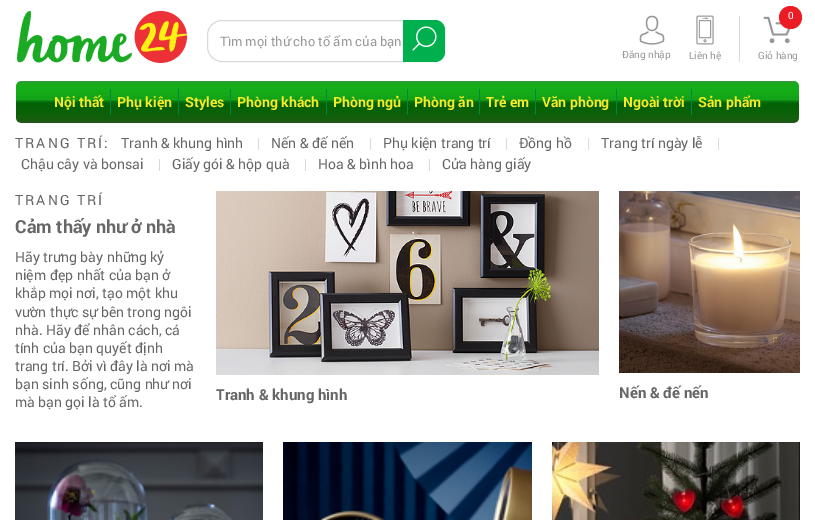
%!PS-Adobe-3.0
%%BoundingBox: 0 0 815 520
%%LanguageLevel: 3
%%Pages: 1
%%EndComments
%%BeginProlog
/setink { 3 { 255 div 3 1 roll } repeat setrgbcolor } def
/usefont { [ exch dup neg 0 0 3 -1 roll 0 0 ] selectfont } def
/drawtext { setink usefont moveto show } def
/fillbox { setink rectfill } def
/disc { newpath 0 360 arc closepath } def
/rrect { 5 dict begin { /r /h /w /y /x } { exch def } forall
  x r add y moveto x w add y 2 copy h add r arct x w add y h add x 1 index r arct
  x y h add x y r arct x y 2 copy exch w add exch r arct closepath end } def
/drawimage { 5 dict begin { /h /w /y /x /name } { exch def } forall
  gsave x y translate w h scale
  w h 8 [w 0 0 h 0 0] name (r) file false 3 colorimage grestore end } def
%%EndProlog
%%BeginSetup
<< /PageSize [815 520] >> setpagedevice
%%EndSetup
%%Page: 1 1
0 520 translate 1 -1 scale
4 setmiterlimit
0 0 815 520 255 255 255 fillbox
(assets/img1.rgb) 17 11 170 52 drawimage
218 218 218 setink
207.5 20.5 237 41 14.5 rrect stroke
(Tìm mọi thứ cho tổ ấm của bạn) 220 46 /Roboto-Regular 13 153 153 153 drawtext
0 176 79 setink
403 20 moveto 435 20 lineto 440.5 20 445 24.5 445 30 curveto 445 52 lineto 445 57.5 440.5 62 435 62 curveto 403 62 lineto closepath fill
(assets/img2.rgb) 412 26 25 25 drawimage
739 16 1 46 218 218 218 fillbox
(assets/img3.rgb) 639 15 26 30 drawimage
(Đăng nhập) 622 58 /Roboto-Regular 10 153 153 153 drawtext
(assets/img4.rgb) 696 15 18 30 drawimage
(Liên hệ) 689 59 /Roboto-Regular 10 153 153 153 drawtext
(assets/img5.rgb) 763 16 28 28 drawimage
236 28 36 setink
790.5 17.5 11.5 disc fill
(0) 788 19 /Roboto-Regular 10 255 255 255 drawtext
(Giỏ hàng) 758 59 /Roboto-Regular 10 153 153 153 drawtext
(assets/img6.rgb) 16 81 783 42 drawimage
110 89 1 26 4 134 67 fillbox
(Nội thất) 54 107 /Roboto-Bold 14 246 235 40 drawtext
178 89 1 26 4 134 67 fillbox
(Phụ kiện) 117 107 /Roboto-Bold 14 246 235 40 drawtext
230 89 1 26 4 134 67 fillbox
(Styles) 185 107 /Roboto-Bold 14 246 235 40 drawtext
326 89 1 26 4 134 67 fillbox
(Phòng khách) 237 107 /Roboto-Bold 14 246 235 40 drawtext
407 89 1 26 4 134 67 fillbox
(Phòng ngủ) 333 107 /Roboto-Bold 14 246 235 40 drawtext
479 89 1 26 4 134 67 fillbox
(Phòng ăn) 414 107 /Roboto-Bold 14 246 235 40 drawtext
535 89 1 26 4 134 67 fillbox
(Trẻ em) 486 107 /Roboto-Bold 14 246 235 40 drawtext
616 89 1 26 4 134 67 fillbox
(Văn phòng) 542 107 /Roboto-Bold 14 246 235 40 drawtext
691 89 1 26 4 134 67 fillbox
(Ngoài trời) 623 107 /Roboto-Bold 14 246 235 40 drawtext
(Sản phẩm) 698 107 /Roboto-Bold 14 246 235 40 drawtext
/Roboto-Regular 14 usefont
102 102 102 setink
15 148 moveto 2 0 (TRANG TRÍ:) ashow
(Tranh & khung hình) 121 148 /Roboto-Regular 14 102 102 102 drawtext
258 138 1 12 218 218 218 fillbox
(Nến & đế nến) 271 148 /Roboto-Regular 14 102 102 102 drawtext
370 138 1 12 218 218 218 fillbox
(Phụ kiện trang trí) 383 148 /Roboto-Regular 14 102 102 102 drawtext
506 138 1 12 218 218 218 fillbox
(Đồng hồ) 519 148 /Roboto-Regular 14 102 102 102 drawtext
588 138 1 12 218 218 218 fillbox
(Trang trí ngày lễ) 601 148 /Roboto-Regular 14 102 102 102 drawtext
718 138 1 12 218 218 218 fillbox
(Chậu cây và bonsai) 21 169 /Roboto-Regular 14 102 102 102 drawtext
159 159 1 12 218 218 218 fillbox
(Giấy gói & hộp quà) 172 169 /Roboto-Regular 14 102 102 102 drawtext
305 159 1 12 218 218 218 fillbox
(Hoa & bình hoa) 318 169 /Roboto-Regular 14 102 102 102 drawtext
429 159 1 12 218 218 218 fillbox
(Cửa hàng giấy) 442 169 /Roboto-Regular 14 102 102 102 drawtext
15 205 moveto 2 0 (TRANG TRÍ) ashow
(Cảm thấy như ở nhà) 15 233 /Roboto-Bold 18 102 102 102 drawtext
(Hãy trưng bày những kỷ) 15 262 /Roboto-Regular 14 102 102 102 drawtext
(niệm đẹp nhất của bạn ở) 15 280 /Roboto-Regular 14 102 102 102 drawtext
(khắp mọi nơi, tạo một khu) 15 298 /Roboto-Regular 14 102 102 102 drawtext
(vườn thực sự bên trong ngôi) 15 317 /Roboto-Regular 14 102 102 102 drawtext
(nhà. Hãy để nhân cách, cá) 15 335 /Roboto-Regular 14 102 102 102 drawtext
(tính của bạn quyết định) 15 353 /Roboto-Regular 14 102 102 102 drawtext
(trang trí. Bởi vì đây là nơi mà) 15 371 /Roboto-Regular 14 102 102 102 drawtext
(bạn sinh sống, cũng như nơi) 15 389 /Roboto-Regular 14 102 102 102 drawtext
(mà bạn gọi là tổ ấm.) 15 407 /Roboto-Regular 14 102 102 102 drawtext
(assets/img7.rgb) 216 191 383 184 drawimage
(Tranh & khung hình) 216 400 /Roboto-Bold 15 102 102 102 drawtext
(assets/img8.rgb) 619 191 181 182 drawimage
(Nến & đế nến) 619 398 /Roboto-Bold 15 102 102 102 drawtext
(assets/img9.rgb) 15 442 248 78 drawimage
(assets/img10.rgb) 283 442 249 78 drawimage
(assets/img11.rgb) 552 442 248 78 drawimage
showpage
%%EOF
